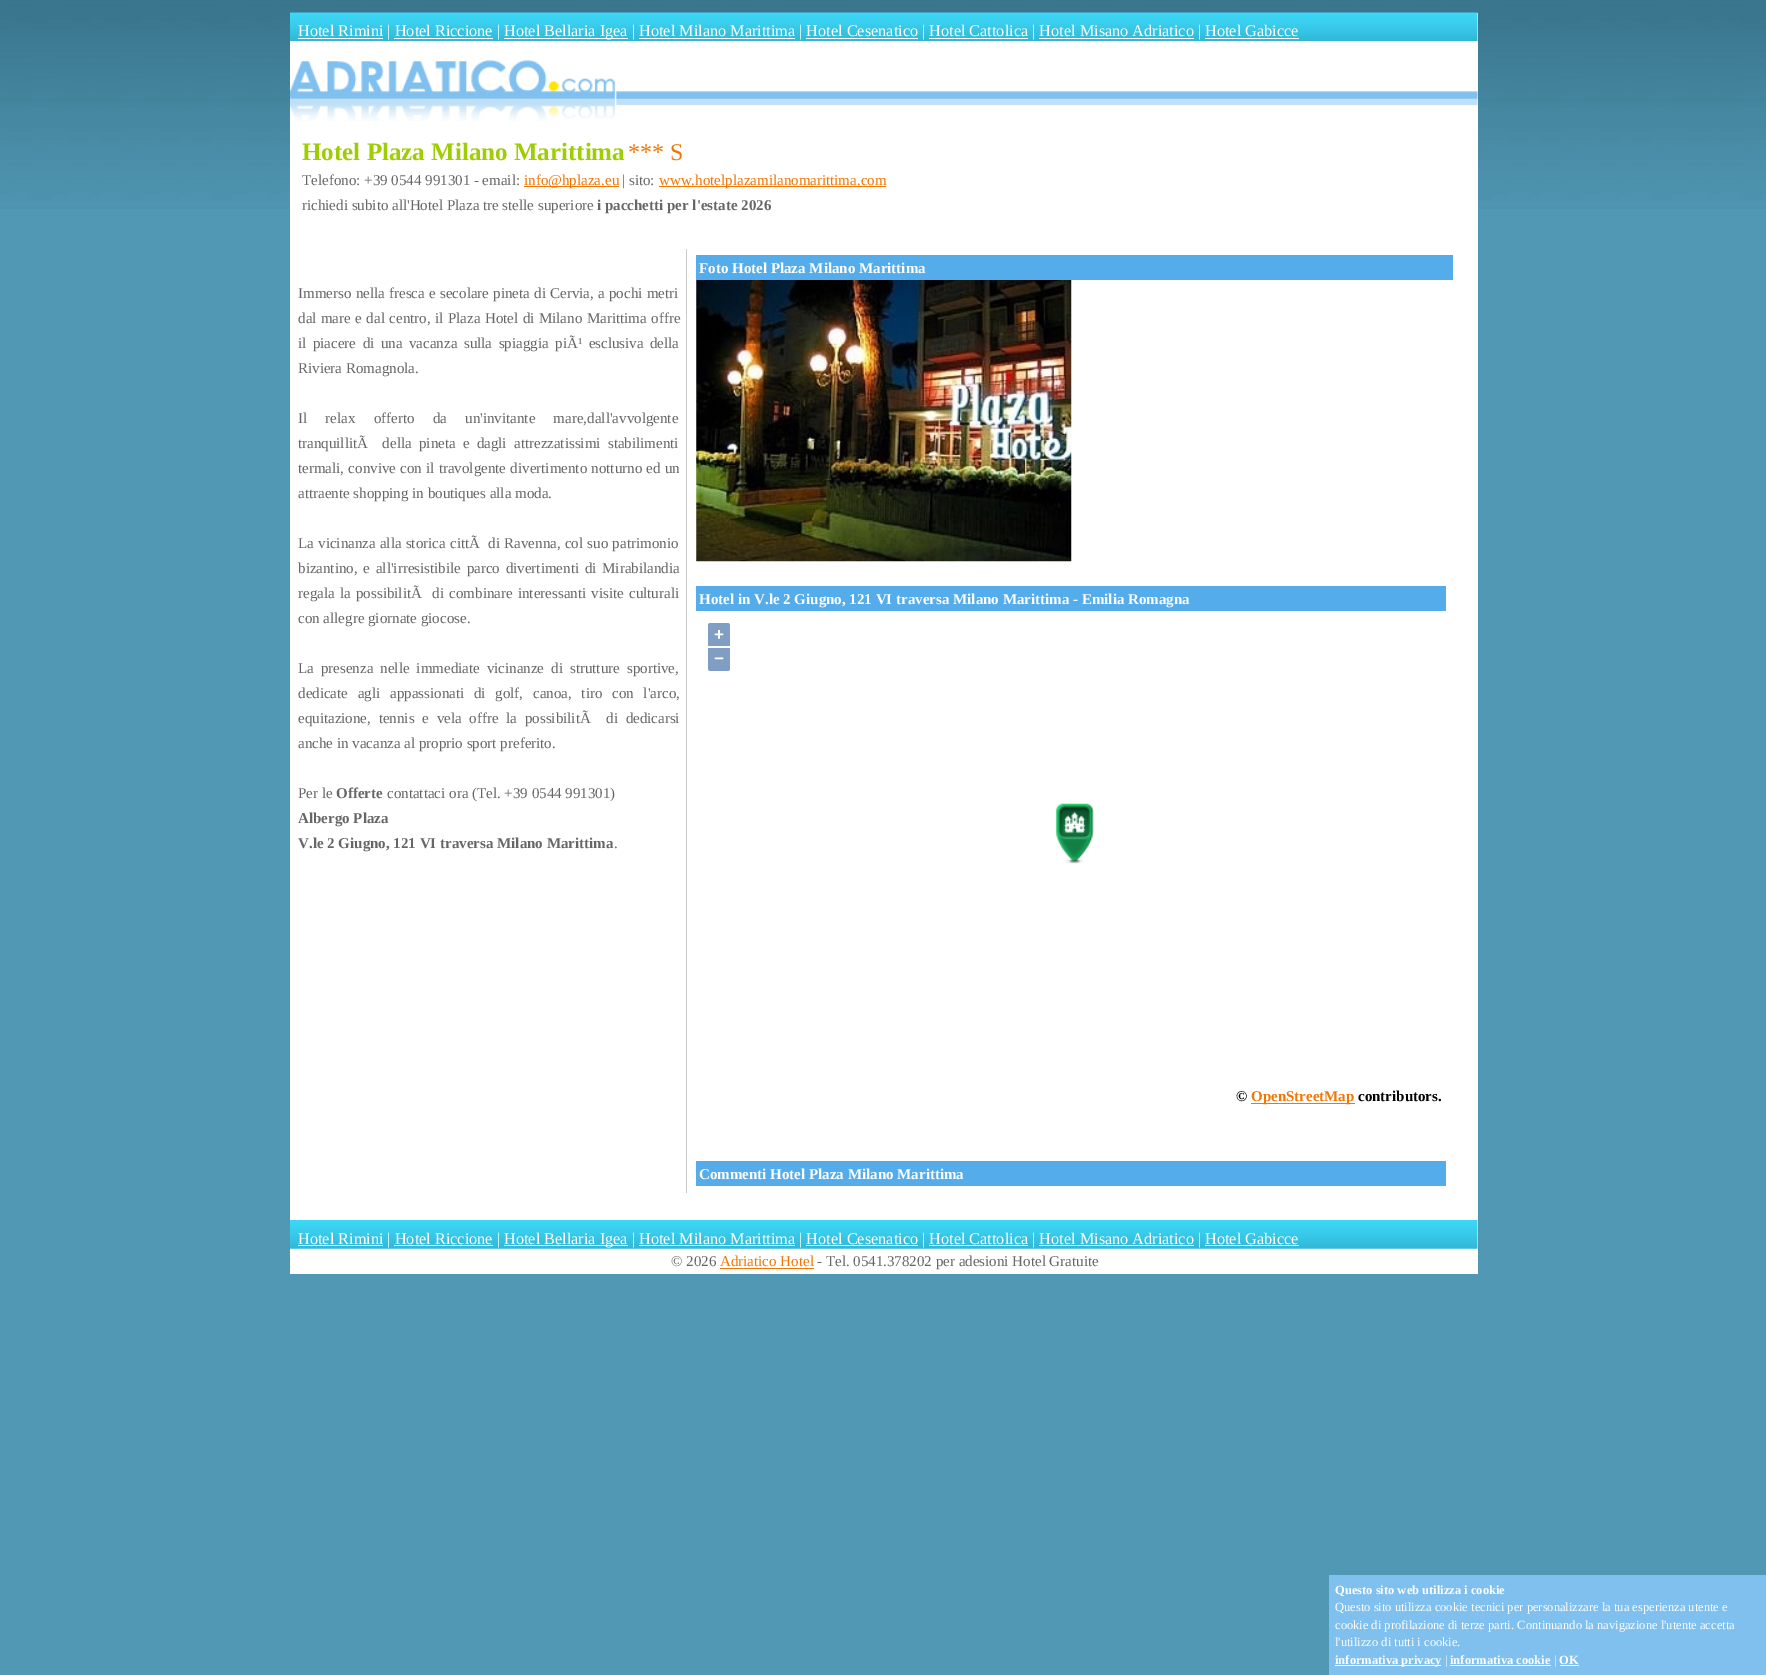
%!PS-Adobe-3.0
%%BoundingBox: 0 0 1766 1675
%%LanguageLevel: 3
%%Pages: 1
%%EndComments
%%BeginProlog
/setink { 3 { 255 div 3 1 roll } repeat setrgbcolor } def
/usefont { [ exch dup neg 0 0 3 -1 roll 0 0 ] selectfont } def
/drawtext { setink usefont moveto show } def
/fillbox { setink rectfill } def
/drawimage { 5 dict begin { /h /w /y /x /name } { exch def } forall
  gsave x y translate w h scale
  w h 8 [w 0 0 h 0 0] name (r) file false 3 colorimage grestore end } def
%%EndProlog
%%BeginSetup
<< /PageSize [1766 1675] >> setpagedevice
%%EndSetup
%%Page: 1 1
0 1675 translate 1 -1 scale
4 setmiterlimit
0 0 1766 1675 81 152 180 fillbox
(assets/img1.rgb) 0 0 1766 209 drawimage
290 13 1188 1261 255 255 255 fillbox
(assets/img2.rgb) 290 12 1188 30 drawimage
298 38 85 1 255 255 255 fillbox
(Hotel Rimini | Hotel Riccione |) 298 36 /LiberationSerif-Regular 16.25 255 255 255 drawtext
504 38 124 1 255 255 255 fillbox
(Hotel Bellaria Igea | Hotel Milano Marittima | Hotel Cesenatico | Hotel Cattolica | Hotel Misano Adriatico | Hotel Gabicce) 504 36 /LiberationSerif-Regular 16.25 255 255 255 drawtext
394 38 99 1 255 255 255 fillbox
639 38 156 1 255 255 255 fillbox
806 38 112 1 255 255 255 fillbox
929 38 99 1 255 255 255 fillbox
1039 38 155 1 255 255 255 fillbox
1205 38 94 1 255 255 255 fillbox
(assets/img3.rgb) 290 41 1188 80 drawimage
(Hotel Plaza Milano Marittima) 302 160 /LiberationSerif-Bold 25 158 205 1 drawtext
(*** S) 628 160 /LiberationSerif-Regular 24 242 118 0 drawtext
(Telefono: +39 0544 991301 - email:) 302 185 /LiberationSerif-Regular 15 102 102 102 drawtext
524 186 95 1 242 118 0 fillbox
(info@hplaza.eu) 524 185 /LiberationSerif-Regular 15 242 118 0 drawtext
(| sito:) 622 185 /LiberationSerif-Regular 15 102 102 102 drawtext
659 186 227 1 242 118 0 fillbox
(www.hotelplazamilanomarittima.com) 659 185 /LiberationSerif-Regular 15 242 118 0 drawtext
(richiedi subito all'Hotel Plaza tre stelle superiore) 302 210 /LiberationSerif-Regular 15 102 102 102 drawtext
(i pacchetti per l'estate 2026) 597 210 /LiberationSerif-Bold 15 102 102 102 drawtext
686 249 1 944 204 204 204 fillbox
/LiberationSerif-Regular 15 usefont
102 102 102 setink
298 298 moveto 0.5 0 32 (Immerso nella fresca e secolare pineta di Cervia, a pochi metri) widthshow
298 323 moveto 0.75 0 32 (dal mare e dal centro, il Plaza Hotel di Milano Marittima offre) widthshow
298 348 moveto 2.75 0 32 (il piacere di una vacanza sulla spiaggia piÃ¹ esclusiva della) widthshow
(Riviera Romagnola.) 298 373 /LiberationSerif-Regular 15 102 102 102 drawtext
298 423 moveto 14.5 0 32 (Il relax offerto da un'invitante mare,dall'avvolgente) widthshow
298 448 moveto 3.5 0 32 (tranquillitÃ  della pineta e dagli attrezzatissimi stabilimenti) widthshow
298 473 moveto 0.5 0 32 (termali, convive con il travolgente divertimento notturno ed un) widthshow
(attraente shopping in boutiques alla moda.) 298 498 /LiberationSerif-Regular 15 102 102 102 drawtext
298 548 moveto 0.5 0 32 (La vicinanza alla storica cittÃ  di Ravenna, col suo patrimonio) widthshow
298 573 moveto 2 0 32 (bizantino, e all'irresistibile parco divertimenti di Mirabilandia) widthshow
298 598 moveto 1.5 0 32 (regala la possibilitÃ  di combinare interessanti visite culturali) widthshow
(con allegre giornate giocose.) 298 623 /LiberationSerif-Regular 15 102 102 102 drawtext
298 673 moveto 3.25 0 32 (La presenza nelle immediate vicinanze di strutture sportive,) widthshow
298 698 moveto 6 0 32 (dedicate agli appassionati di golf, canoa, tiro con l'arco,) widthshow
298 723 moveto 4 0 32 (equitazione, tennis e vela offre la possibilitÃ  di dedicarsi) widthshow
(anche in vacanza al proprio sport preferito.) 298 748 /LiberationSerif-Regular 15 102 102 102 drawtext
(Per le) 298 798 /LiberationSerif-Regular 15 102 102 102 drawtext
(Offerte) 336 798 /LiberationSerif-Bold 15 102 102 102 drawtext
(contattaci ora \(Tel. +39 0544 991301\)) 387 798 /LiberationSerif-Regular 15 102 102 102 drawtext
(Albergo Plaza) 298 823 /LiberationSerif-Bold 15 102 102 102 drawtext
(V.le 2 Giugno, 121 VI traversa Milano Marittima) 298 848 /LiberationSerif-Bold 15 102 102 102 drawtext
(.) 614 848 /LiberationSerif-Regular 15 102 102 102 drawtext
696 255 757 25 85 172 234 fillbox
(Foto Hotel Plaza Milano Marittima) 699 273 /LiberationSerif-Bold 15 255 255 255 drawtext
(assets/img4.rgb) 696 280 376 282 drawimage
696 586 750 25 85 172 234 fillbox
(Hotel in V.le 2 Giugno, 121 VI traversa Milano Marittima - Emilia Romagna) 699 604 /LiberationSerif-Bold 15 255 255 255 drawtext
128 158 196 setink
710.5 623 moveto 727.5 623 lineto 729 623 730 624 730 625.5 curveto 730 646 lineto 708 646 lineto 708 625.5 lineto 708 624 709 623 710.5 623 curveto closepath fill
(+) 714 640 /LiberationSans-Bold 17 255 255 255 drawtext
128 158 196 setink
708 648 moveto 730 648 lineto 730 668.5 lineto 730 670 729 671 727.5 671 curveto 710.5 671 lineto 709 671 708 670 708 668.5 curveto closepath fill
(−) 714 664 /LiberationSans-Bold 17 255 255 255 drawtext
(©) 1236 1101 /LiberationSerif-Bold 15 0 0 0 drawtext
1251 1103 104 1 242 118 0 fillbox
(OpenStreetMap) 1251 1101 /LiberationSerif-Bold 15 242 118 0 drawtext
(contributors.) 1358 1101 /LiberationSerif-Bold 15 0 0 0 drawtext
(assets/img5.rgb) 1056 803 38 61 drawimage
696 1161 750 25 85 172 234 fillbox
(Commenti Hotel Plaza Milano Marittima) 699 1179 /LiberationSerif-Bold 15 255 255 255 drawtext
(assets/img6.rgb) 290 1220 1188 29 drawimage
298 1245 85 1 255 255 255 fillbox
(Hotel Rimini | Hotel Riccione |) 298 1244 /LiberationSerif-Regular 16.25 255 255 255 drawtext
504 1245 124 1 255 255 255 fillbox
(Hotel Bellaria Igea | Hotel Milano Marittima | Hotel Cesenatico | Hotel Cattolica | Hotel Misano Adriatico | Hotel Gabicce) 504 1244 /LiberationSerif-Regular 16.25 255 255 255 drawtext
394 1245 99 1 255 255 255 fillbox
639 1245 156 1 255 255 255 fillbox
806 1245 112 1 255 255 255 fillbox
929 1245 99 1 255 255 255 fillbox
1039 1245 155 1 255 255 255 fillbox
1205 1245 94 1 255 255 255 fillbox
(© 2026) 671 1266 /LiberationSerif-Regular 15 102 102 102 drawtext
(Adriatico Hotel) 720 1266 /LiberationSerif-Regular 15 242 118 0 drawtext
720 1268 94 1 242 118 0 fillbox
(- Tel. 0541.378202 per adesioni Hotel Gratuite) 817 1266 /LiberationSerif-Regular 15 102 102 102 drawtext
1329 1575 437 100 127 192 239 fillbox
(Questo sito web utilizza i cookie) 1335 1594 /LiberationSerif-Bold 12.5 255 255 255 drawtext
(Questo sito utilizza cookie tecnici per personalizzare la tua esperienza utente e) 1335 1611 /LiberationSerif-Regular 12.5 255 255 255 drawtext
(cookie di profilazione di terze parti. Continuando la navigazione l'utente accetta) 1335 1629 /LiberationSerif-Regular 12.5 255 255 255 drawtext
(l'utilizzo di tutti i cookie.) 1335 1646 /LiberationSerif-Regular 12.5 255 255 255 drawtext
1335 1665 106 1 255 255 255 fillbox
(informativa privacy) 1335 1664 /LiberationSerif-Bold 12.5 255 255 255 drawtext
(|) 1445 1664 /LiberationSerif-Regular 12.5 255 255 255 drawtext
(informativa cookie) 1450 1664 /LiberationSerif-Bold 12.5 255 255 255 drawtext
1450 1665 101 1 255 255 255 fillbox
(|) 1554 1664 /LiberationSerif-Regular 12.5 255 255 255 drawtext
(OK) 1559 1664 /LiberationSerif-Bold 12.5 255 255 255 drawtext
1560 1665 19 1 255 255 255 fillbox
showpage
%%EOF
